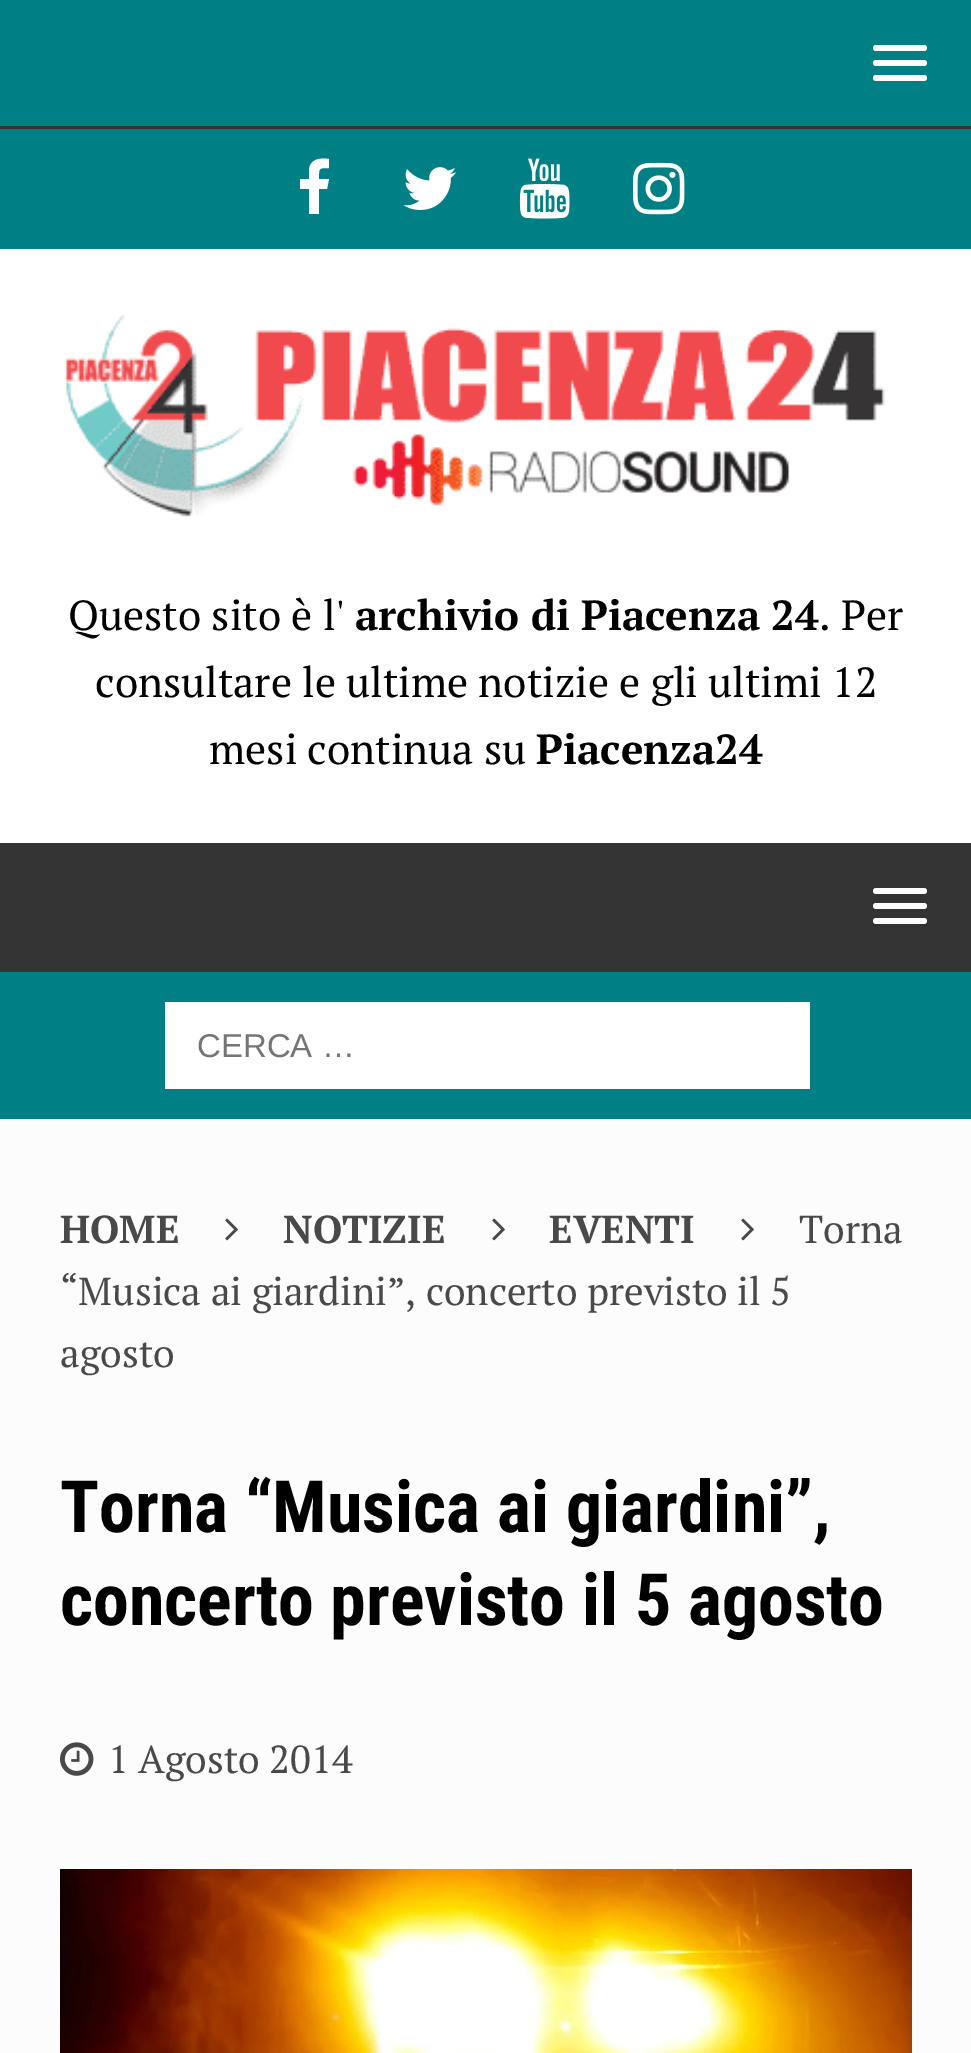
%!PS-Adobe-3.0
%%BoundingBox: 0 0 971 2053
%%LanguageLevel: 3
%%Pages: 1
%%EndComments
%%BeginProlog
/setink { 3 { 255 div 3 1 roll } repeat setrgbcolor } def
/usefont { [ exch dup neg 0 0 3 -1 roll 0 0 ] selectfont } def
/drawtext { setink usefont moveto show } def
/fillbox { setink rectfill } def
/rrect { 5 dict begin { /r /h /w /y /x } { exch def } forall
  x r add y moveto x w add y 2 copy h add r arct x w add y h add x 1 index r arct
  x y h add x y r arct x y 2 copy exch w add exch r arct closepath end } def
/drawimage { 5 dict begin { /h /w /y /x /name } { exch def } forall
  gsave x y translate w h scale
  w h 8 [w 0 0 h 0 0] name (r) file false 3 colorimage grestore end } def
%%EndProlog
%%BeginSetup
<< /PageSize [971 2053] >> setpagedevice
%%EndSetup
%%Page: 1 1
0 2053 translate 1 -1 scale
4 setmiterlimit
0 0 971 2053 252 252 252 fillbox
0 0 971 126 0 128 132 fillbox
0 126 971 3 51 51 51 fillbox
255 255 255 setink
873 45 54 6 3 rrect fill
873 60 54 6 3 rrect fill
873 75 54 6 3 rrect fill
0 129 971 120 0 128 132 fillbox
255 255 255 setink
329 159 moveto 329 168 lineto 318 168 319 168 319 179 curveto 329 179 lineto 327 189 lineto 319 189 lineto 319 214 lineto 309 214 lineto 309 189 lineto 300 189 lineto 300 179 lineto 309 179 lineto 309 169 lineto 311 158 321 158 329 159 curveto closepath fill
(assets/img1.rgb) 403 167 54 43 drawimage
(assets/img2.rgb) 519 158 51 61 drawimage
(assets/img3.rgb) 633 162 52 53 drawimage
0 249 971 594 255 255 255 fillbox
(assets/img4.rgb) 65 315 821 202 drawimage
(Questo sito è l') 68 630 /PTSerif-Regular 42 0 0 0 drawtext
(archivio di Piacenza 24) 355 630 /PTSerif-Bold 42 0 0 0 drawtext
(. Per) 819 630 /PTSerif-Regular 42 0 0 0 drawtext
(consultare le ultime notizie e gli ultimi 12) 95 697 /PTSerif-Regular 42 0 0 0 drawtext
(mesi continua su) 209 764 /PTSerif-Regular 42 0 0 0 drawtext
(Piacenza24) 536 764 /PTSerif-Bold 42 0 0 0 drawtext
0 843 971 129 51 51 51 fillbox
255 255 255 setink
873 888 54 6 3 rrect fill
873 903 54 6 3 rrect fill
873 918 54 6 3 rrect fill
0 972 971 147 0 128 132 fillbox
165 1002 645 87 255 255 255 fillbox
(CERCA …) 197 1057 /LiberationSans-Regular 33 117 117 117 drawtext
(HOME) 60 1243 /PTSerif-Bold 39 73 73 73 drawtext
(assets/img5.rgb) 225 1218 13 23 drawimage
(NOTIZIE) 283 1243 /PTSerif-Bold 39 73 73 73 drawtext
(assets/img5.rgb) 492 1218 13 23 drawimage
(EVENTI) 549 1243 /PTSerif-Bold 39 73 73 73 drawtext
(assets/img5.rgb) 741 1218 13 23 drawimage
(Torna) 799 1243 /PTSerif-Regular 39 73 73 73 drawtext
(“Musica ai giardini”, concerto previsto il 5) 60 1305 /PTSerif-Regular 39 73 73 73 drawtext
(agosto) 60 1367 /PTSerif-Regular 39 73 73 73 drawtext
(Torna “Musica ai giardini”,) 60 1532 /RobotoCondensed-Bold 72 0 0 0 drawtext
(concerto previsto il 5 agosto) 60 1625 /RobotoCondensed-Bold 72 0 0 0 drawtext
(assets/img6.rgb) 60 1742 34 34 drawimage
(1 Agosto 2014) 108 1773 /PTSerif-Regular 39 73 73 73 drawtext
(assets/img7.rgb) 60 1869 852 184 drawimage
showpage
%%EOF
